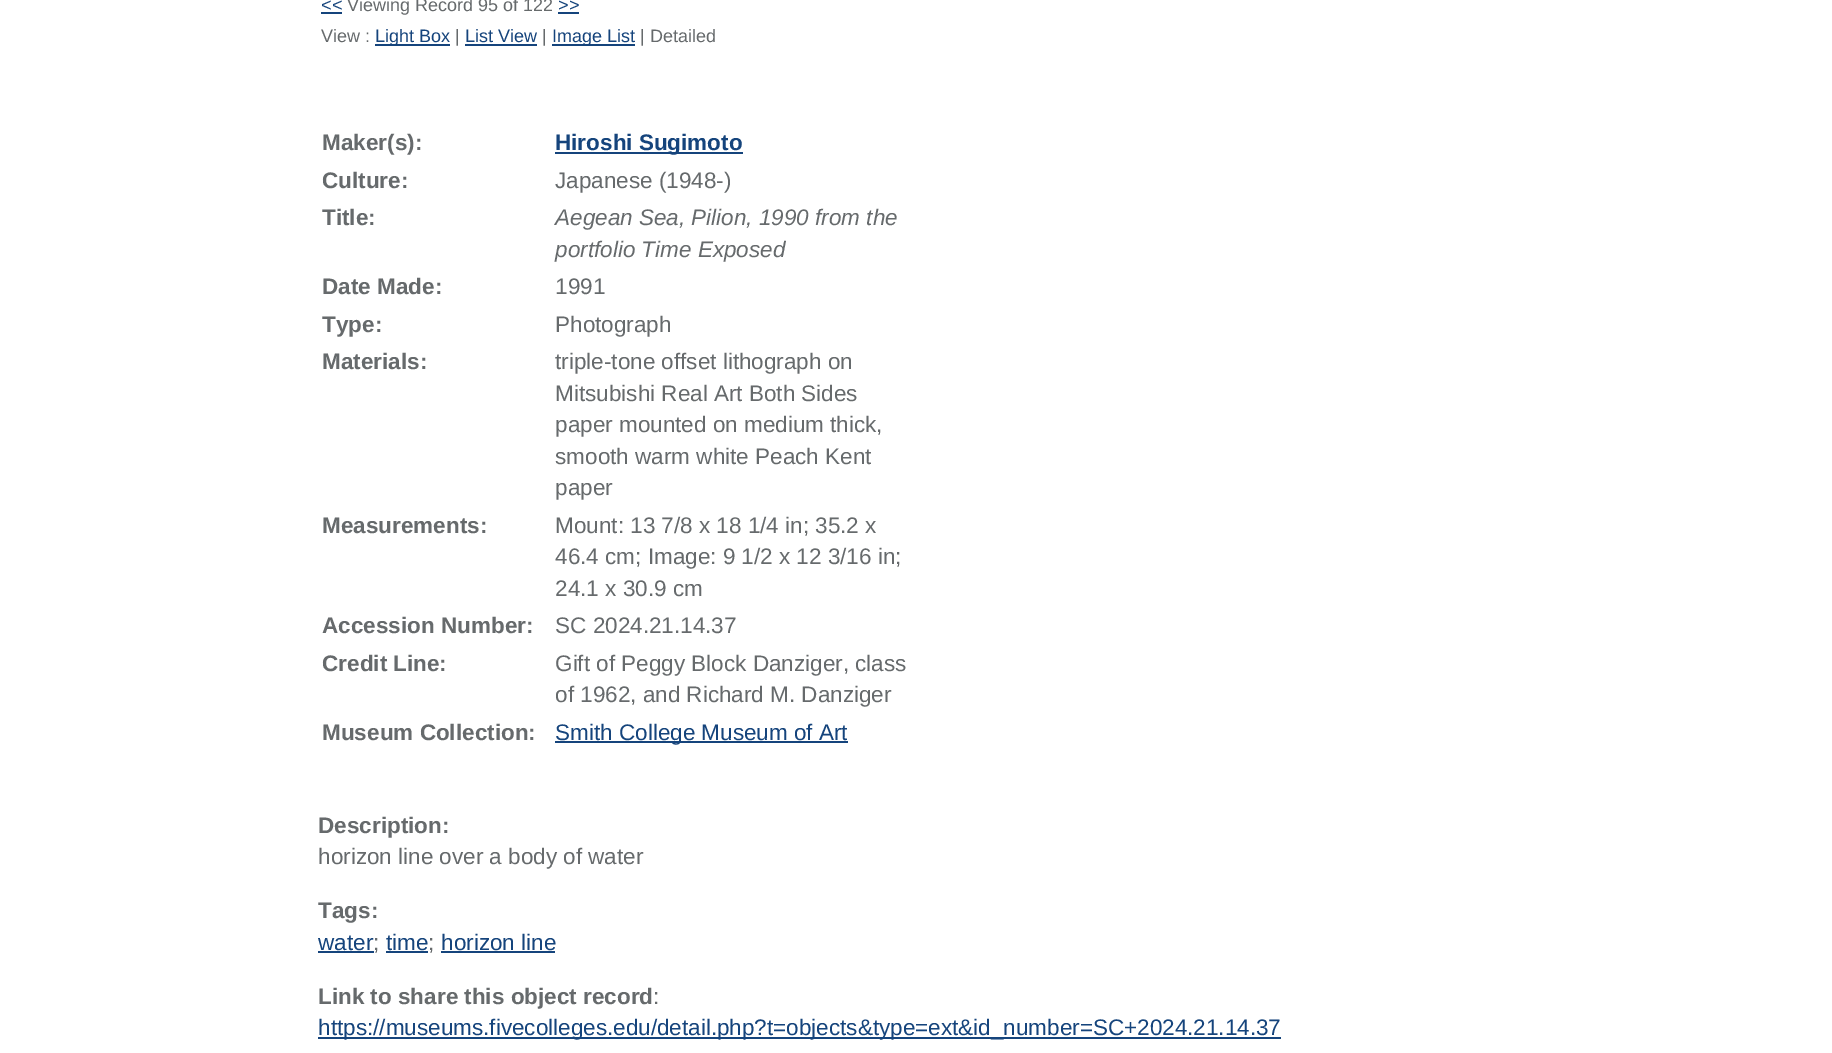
%!PS-Adobe-3.0
%%BoundingBox: 0 0 1832 1053
%%LanguageLevel: 3
%%Pages: 1
%%EndComments
%%BeginProlog
/setink { 3 { 255 div 3 1 roll } repeat setrgbcolor } def
/usefont { [ exch dup neg 0 0 3 -1 roll 0 0 ] selectfont } def
/drawtext { setink usefont moveto show } def
/fillbox { setink rectfill } def
%%EndProlog
%%BeginSetup
<< /PageSize [1832 1053] >> setpagedevice
%%EndSetup
%%Page: 1 1
0 1053 translate 1 -1 scale
4 setmiterlimit
0 0 1832 1053 255 255 255 fillbox
(<<) 321 11 /LiberationSans-Regular 18 21 68 124 drawtext
321 12 21 2 21 68 124 fillbox
(Viewing Record 95 of 122) 347 11 /LiberationSans-Regular 18 102 106 108 drawtext
(>>) 558 11 /LiberationSans-Regular 18 21 68 124 drawtext
558 12 21 2 21 68 124 fillbox
(View :) 321 42 /LiberationSans-Regular 18 102 106 108 drawtext
375 44 75 2 21 68 124 fillbox
(Light Box) 375 42 /LiberationSans-Regular 18 21 68 124 drawtext
(|) 455 42 /LiberationSans-Regular 18 102 106 108 drawtext
(List View) 465 42 /LiberationSans-Regular 18 21 68 124 drawtext
465 44 72 2 21 68 124 fillbox
(|) 542 42 /LiberationSans-Regular 18 102 106 108 drawtext
552 44 83 2 21 68 124 fillbox
(Image List) 552 42 /LiberationSans-Regular 18 21 68 124 drawtext
(| Detailed) 640 42 /LiberationSans-Regular 18 102 106 108 drawtext
(Maker\(s\):) 322 150 /LiberationSans-Bold 22.5 102 106 108 drawtext
555 152 188 2 21 68 124 fillbox
(Hiroshi Sugimoto) 555 150 /LiberationSans-Bold 22.5 21 68 124 drawtext
(Culture:) 322 188 /LiberationSans-Bold 22.5 102 106 108 drawtext
(Japanese \(1948-\)) 555 188 /LiberationSans-Regular 22.5 102 106 108 drawtext
(Title:) 322 225 /LiberationSans-Bold 22.5 102 106 108 drawtext
(Aegean Sea, Pilion, 1990 from the) 555 225 /LiberationSans-Italic 22.5 102 106 108 drawtext
(portfolio Time Exposed) 555 257 /LiberationSans-Italic 22.5 102 106 108 drawtext
(Date Made:) 322 294 /LiberationSans-Bold 22.5 102 106 108 drawtext
(1991) 555 294 /LiberationSans-Regular 22.5 102 106 108 drawtext
(Type:) 322 332 /LiberationSans-Bold 22.5 102 106 108 drawtext
(Photograph) 555 332 /LiberationSans-Regular 22.5 102 106 108 drawtext
(Materials:) 322 369 /LiberationSans-Bold 22.5 102 106 108 drawtext
(triple-tone offset lithograph on) 555 369 /LiberationSans-Regular 22.5 102 106 108 drawtext
(Mitsubishi Real Art Both Sides) 555 401 /LiberationSans-Regular 22.5 102 106 108 drawtext
(paper mounted on medium thick,) 555 432 /LiberationSans-Regular 22.5 102 106 108 drawtext
(smooth warm white Peach Kent) 555 464 /LiberationSans-Regular 22.5 102 106 108 drawtext
(paper) 555 495 /LiberationSans-Regular 22.5 102 106 108 drawtext
(Measurements:) 322 533 /LiberationSans-Bold 22.5 102 106 108 drawtext
(Mount: 13 7/8 x 18 1/4 in; 35.2 x) 555 533 /LiberationSans-Regular 22.5 102 106 108 drawtext
(46.4 cm; Image: 9 1/2 x 12 3/16 in;) 555 564 /LiberationSans-Regular 22.5 102 106 108 drawtext
(24.1 x 30.9 cm) 555 596 /LiberationSans-Regular 22.5 102 106 108 drawtext
(Accession Number:) 322 633 /LiberationSans-Bold 22.5 102 106 108 drawtext
(SC 2024.21.14.37) 555 633 /LiberationSans-Regular 22.5 102 106 108 drawtext
(Credit Line:) 322 671 /LiberationSans-Bold 22.5 102 106 108 drawtext
(Gift of Peggy Block Danziger, class) 555 671 /LiberationSans-Regular 22.5 102 106 108 drawtext
(of 1962, and Richard M. Danziger) 555 702 /LiberationSans-Regular 22.5 102 106 108 drawtext
(Museum Collection:) 322 740 /LiberationSans-Bold 22.5 102 106 108 drawtext
555 741 293 2 21 68 124 fillbox
(Smith College Museum of Art) 555 740 /LiberationSans-Regular 22.5 21 68 124 drawtext
(Description:) 318 833 /LiberationSans-Bold 22.5 102 106 108 drawtext
(horizon line over a body of water) 318 864 /LiberationSans-Regular 22.5 102 106 108 drawtext
(Tags:) 318 918 /LiberationSans-Bold 22.5 102 106 108 drawtext
(water) 318 950 /LiberationSans-Regular 22.5 21 68 124 drawtext
318 951 56 2 21 68 124 fillbox
(;) 373 950 /LiberationSans-Regular 22.5 102 106 108 drawtext
(time) 386 950 /LiberationSans-Regular 22.5 21 68 124 drawtext
386 951 42 2 21 68 124 fillbox
(;) 428 950 /LiberationSans-Regular 22.5 102 106 108 drawtext
(horizon line) 441 950 /LiberationSans-Regular 22.5 21 68 124 drawtext
441 951 114 2 21 68 124 fillbox
(Link to share this object record) 318 1004 /LiberationSans-Bold 22.5 102 106 108 drawtext
(:) 653 1004 /LiberationSans-Regular 22.5 102 106 108 drawtext
318 1037 963 2 21 68 124 fillbox
(https://museums.fivecolleges.edu/detail.php?t=objects&type=ext&id_number=SC+2024.21.14.37) 318 1035 /LiberationSans-Regular 22.5 21 68 124 drawtext
showpage
%%EOF
